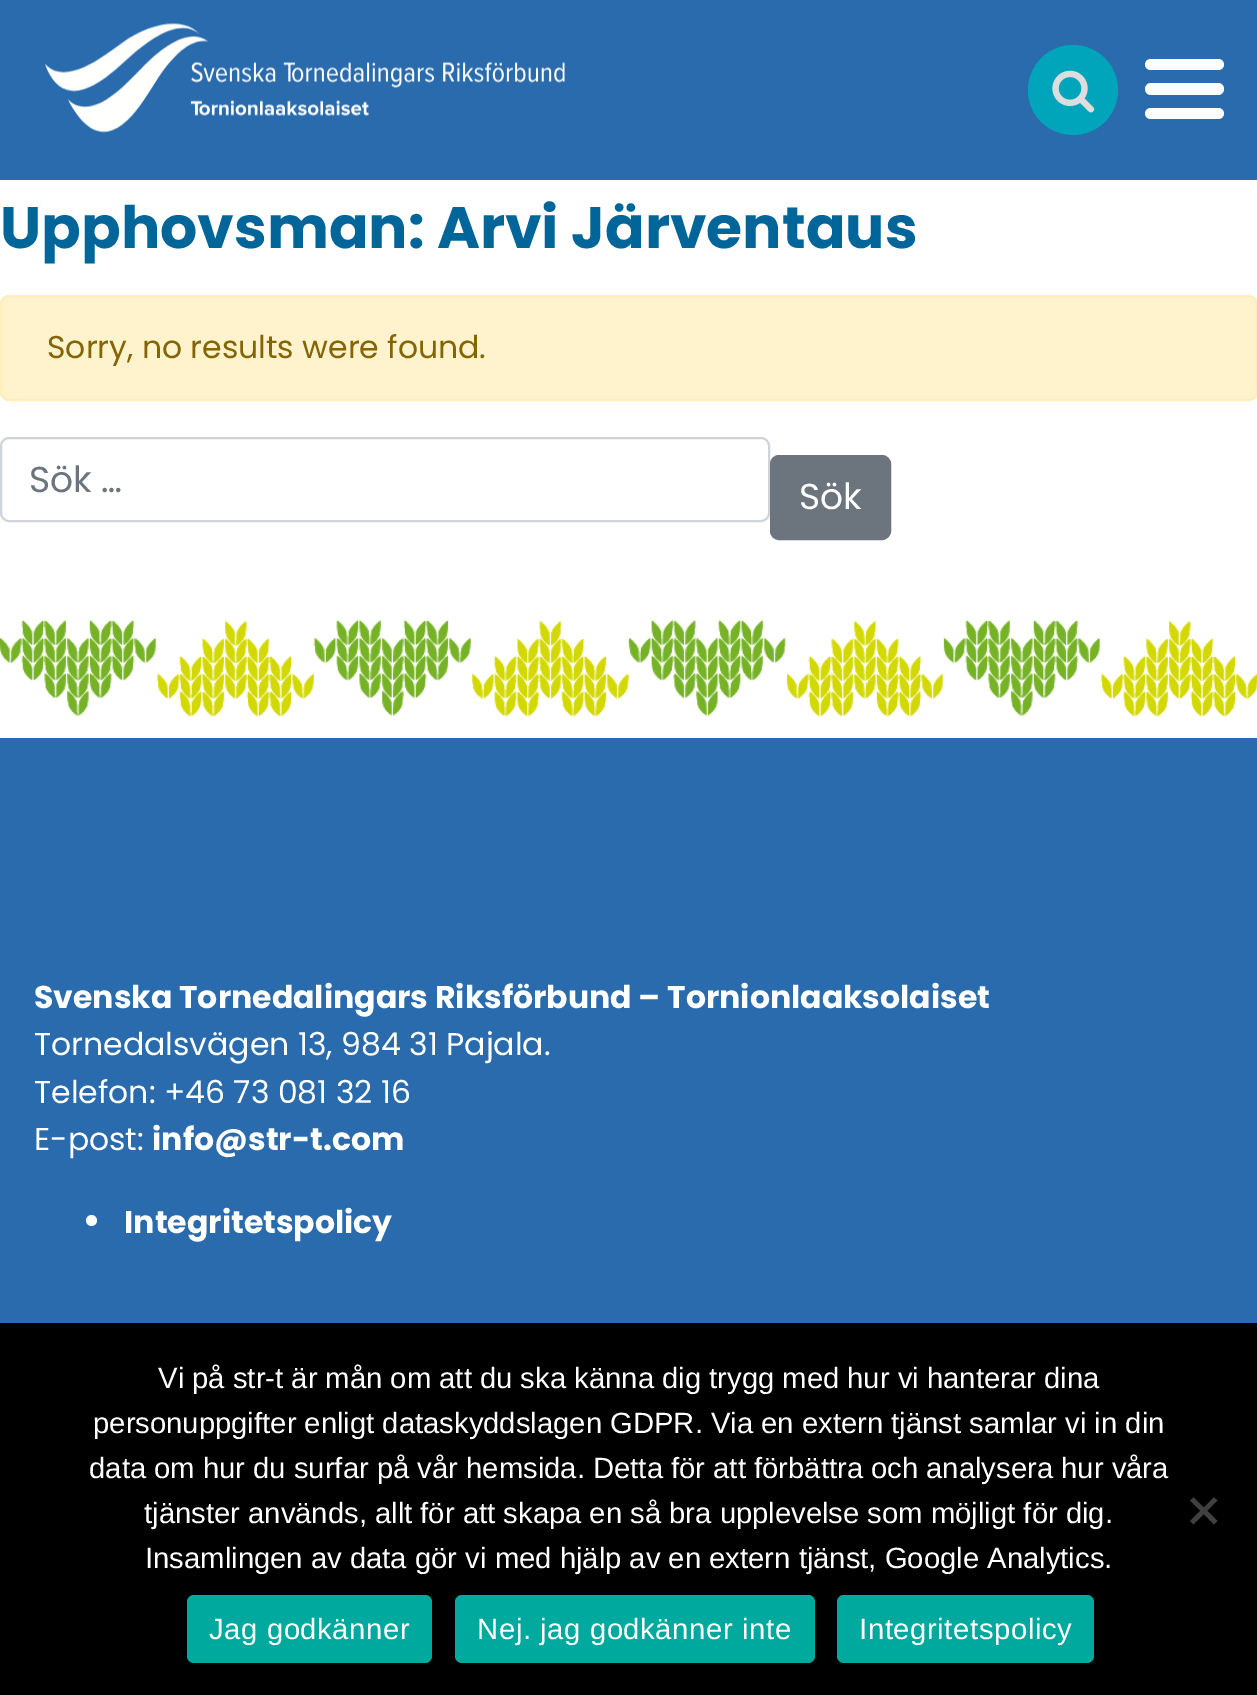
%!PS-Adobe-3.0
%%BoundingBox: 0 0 1257 1695
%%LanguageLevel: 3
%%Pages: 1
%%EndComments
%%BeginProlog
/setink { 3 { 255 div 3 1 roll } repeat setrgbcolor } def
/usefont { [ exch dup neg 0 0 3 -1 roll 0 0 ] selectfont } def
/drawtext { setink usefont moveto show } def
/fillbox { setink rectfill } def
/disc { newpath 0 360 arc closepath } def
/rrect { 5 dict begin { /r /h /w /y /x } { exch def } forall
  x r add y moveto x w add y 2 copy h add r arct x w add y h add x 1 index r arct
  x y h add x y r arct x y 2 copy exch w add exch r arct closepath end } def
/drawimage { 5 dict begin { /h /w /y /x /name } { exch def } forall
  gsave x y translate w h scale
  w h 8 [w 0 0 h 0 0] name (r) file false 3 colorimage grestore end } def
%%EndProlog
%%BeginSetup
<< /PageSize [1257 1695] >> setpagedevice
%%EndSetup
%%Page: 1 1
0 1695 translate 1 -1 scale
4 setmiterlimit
0 0 1257 1695 255 255 255 fillbox
0 0 1257 180 41 107 173 fillbox
(assets/img1.rgb) 45 23 520 110 drawimage
0 164 187 setink
1073 90 45 disc fill
(assets/img2.rgb) 1052 70 43 43 drawimage
255 255 255 setink
1145 59 79 11 5.5 rrect fill
1145 83 79 12 6 rrect fill
1145 108 79 11 5.5 rrect fill
(Upphovsman: Arvi Järventaus) 0 248 /Poppins-Bold 58.5 0 102 153 drawtext
255 243 205 setink
1 296 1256 104 8 rrect gsave fill grestore
255 238 186 setink
2 setlinewidth
stroke
(Sorry, no results were found.) 47 358 /Poppins-Regular 31.5 133 100 4 drawtext
206 212 218 setink
1 438 768 83 8 rrect stroke
(Sök …) 29 492 /Poppins-Regular 36 108 117 125 drawtext
771 456 119 83 8 rrect gsave fill grestore
stroke
(Sök) 799 509 /Poppins-Regular 36 255 255 255 drawtext
(assets/img3.rgb) 0 619 1257 98 drawimage
0 738 1257 585 41 107 173 fillbox
(Svenska Tornedalingars Riksförbund – Tornionlaaksolaiset) 34 1008 /Poppins-Bold 31.5 255 255 255 drawtext
(Tornedalsvägen 13, 984 31 Pajala.) 34 1055 /Poppins-Regular 31.5 255 255 255 drawtext
(Telefon: +46 73 081 32 16) 34 1103 /Poppins-Regular 31.5 255 255 255 drawtext
(E-post:) 34 1150 /Poppins-Regular 31.5 255 255 255 drawtext
(info@str-t.com) 152 1150 /Poppins-Bold 31.5 255 255 255 drawtext
91.5 1220.5 5.5 disc fill
(Integritetspolicy) 124 1233 /Poppins-Bold 31.5 255 255 255 drawtext
0 1323 1257 372 0 0 0 fillbox
(Vi på str-t är mån om att du ska känna dig trygg med hur vi hanterar dina) 158 1388 /LiberationSans-Regular 29.25 255 255 255 drawtext
(personuppgifter enligt dataskyddslagen GDPR. Via en extern tjänst samlar vi in din) 93 1433 /LiberationSans-Regular 29.25 255 255 255 drawtext
(data om hur du surfar på vår hemsida. Detta för att förbättra och analysera hur våra) 89 1478 /LiberationSans-Regular 29.25 255 255 255 drawtext
(tjänster används, allt för att skapa en så bra upplevelse som möjligt för dig.) 144 1523 /LiberationSans-Regular 29.25 255 255 255 drawtext
(Insamlingen av data gör vi med hjälp av en extern tjänst, Google Analytics.) 145 1568 /LiberationSans-Regular 29.25 255 255 255 drawtext
64 64 64 setink
1214 1497.5 moveto 1217.5 1500.5 lineto 1193.5 1524.5 lineto 1190 1521 lineto closepath fill
1190 1500.5 moveto 1193.5 1497.5 lineto 1217.5 1521 lineto 1214 1524.5 lineto closepath fill
0 169 157 setink
187 1595 245 68 7 rrect fill
255 255 255 setink
209 1639 moveto 0.6 0 (Jag godkänner) ashow
0 169 157 setink
455 1595 360 68 7 rrect fill
255 255 255 setink
477 1639 moveto 0.6 0 (Nej. jag godkänner inte) ashow
0 169 157 setink
837 1595 257 68 7 rrect fill
255 255 255 setink
859 1639 moveto 0.6 0 (Integritetspolicy) ashow
showpage
%%EOF
